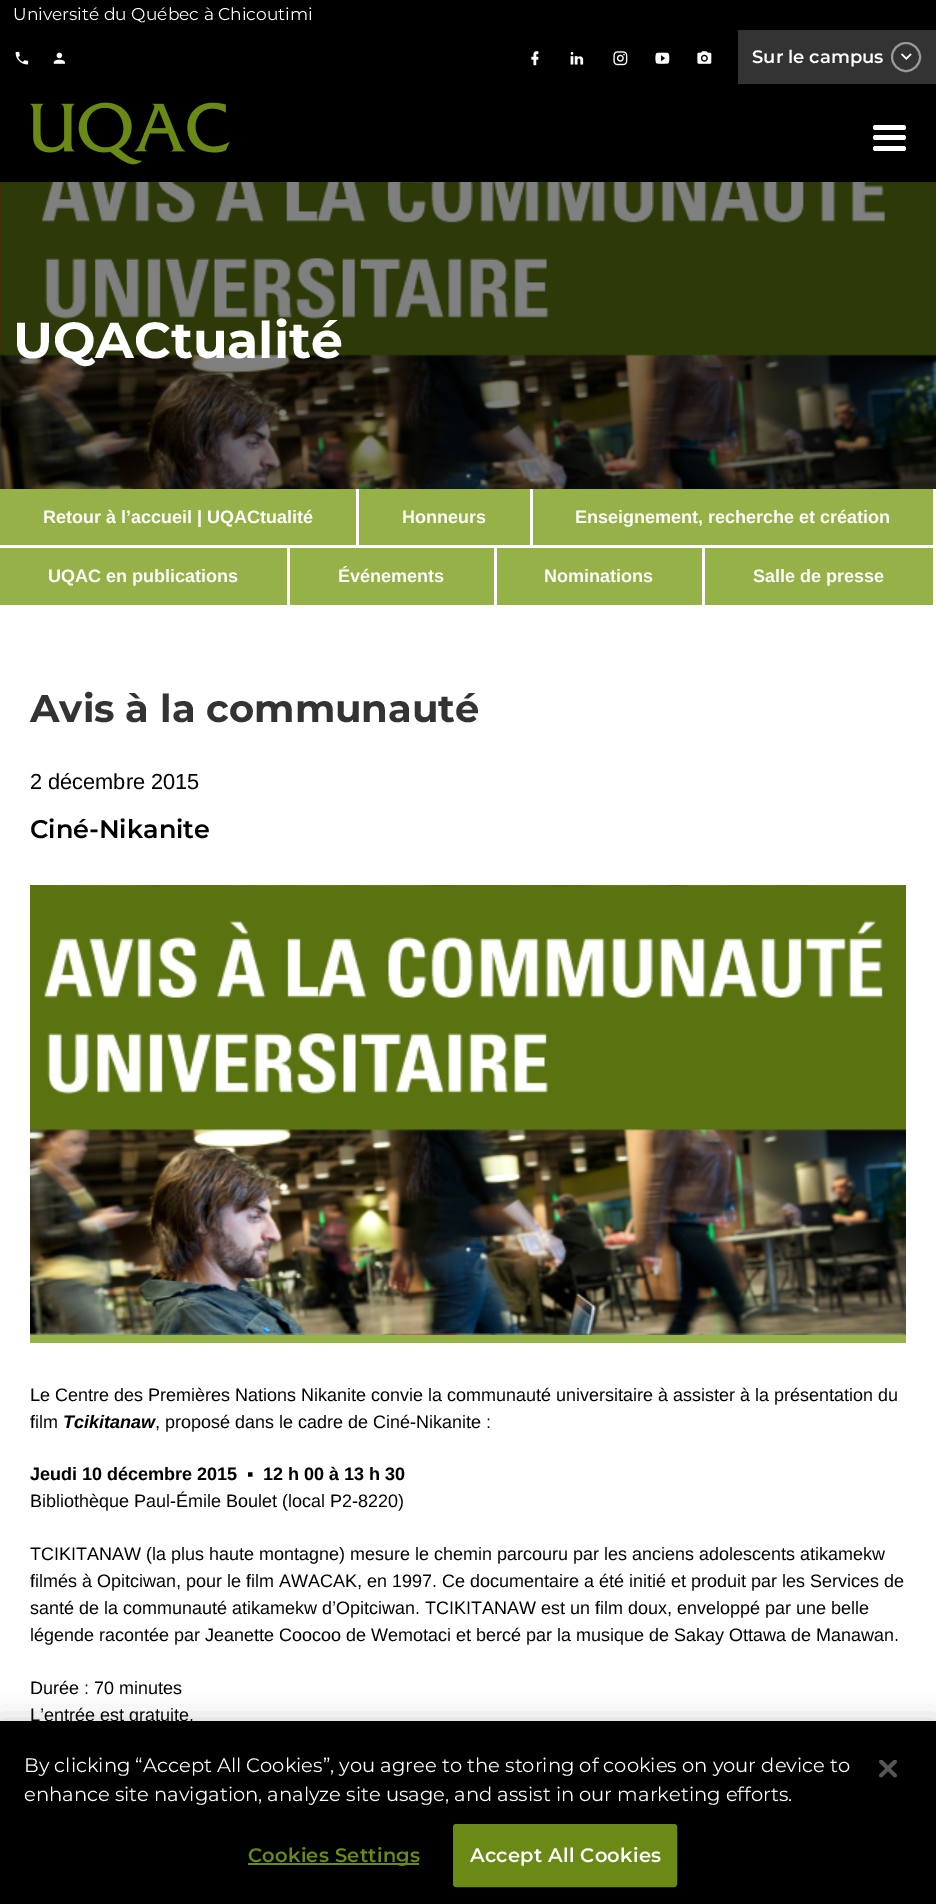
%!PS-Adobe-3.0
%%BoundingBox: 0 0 936 1904
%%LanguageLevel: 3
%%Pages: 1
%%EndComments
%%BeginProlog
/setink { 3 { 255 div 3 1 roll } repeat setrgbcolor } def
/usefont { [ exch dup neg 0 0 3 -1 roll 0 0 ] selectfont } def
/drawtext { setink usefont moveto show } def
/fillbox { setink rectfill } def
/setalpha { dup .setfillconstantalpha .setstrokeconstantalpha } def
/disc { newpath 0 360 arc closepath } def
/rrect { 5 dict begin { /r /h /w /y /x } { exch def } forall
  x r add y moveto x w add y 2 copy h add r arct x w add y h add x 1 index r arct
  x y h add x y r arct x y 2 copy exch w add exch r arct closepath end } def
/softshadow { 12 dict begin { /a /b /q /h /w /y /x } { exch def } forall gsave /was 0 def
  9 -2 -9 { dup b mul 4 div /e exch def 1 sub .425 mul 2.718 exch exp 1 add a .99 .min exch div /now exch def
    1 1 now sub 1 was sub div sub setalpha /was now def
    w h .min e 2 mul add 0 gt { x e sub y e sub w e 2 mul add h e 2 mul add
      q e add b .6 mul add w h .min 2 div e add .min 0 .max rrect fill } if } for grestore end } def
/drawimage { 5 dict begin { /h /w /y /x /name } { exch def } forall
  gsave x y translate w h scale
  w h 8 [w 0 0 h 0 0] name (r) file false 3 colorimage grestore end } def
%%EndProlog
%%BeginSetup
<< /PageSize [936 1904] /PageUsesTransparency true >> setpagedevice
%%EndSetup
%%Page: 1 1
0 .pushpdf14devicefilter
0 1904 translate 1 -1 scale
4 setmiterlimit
0 0 936 1904 255 255 255 fillbox
0 0 936 182 0 0 0 fillbox
(Université du Québec à Chicoutimi) 13 20 /Montserrat-Regular 17.1 255 255 255 drawtext
(assets/img1.rgb) 15 51 14 14 drawimage
(assets/img2.rgb) 53 52 12 12 drawimage
(assets/img3.rgb) 531 51 8 15 drawimage
(assets/img4.rgb) 570 52 14 13 drawimage
(assets/img5.rgb) 613 51 15 15 drawimage
(assets/img6.rgb) 655 52 15 12 drawimage
(assets/img7.rgb) 697 51 15 13 drawimage
738 30 198 54 51 51 51 fillbox
(Sur le campus) 752 63 /Montserrat-SemiBold 18 255 255 255 drawtext
153 153 153 setink
2 setlinewidth
906 57 14 disc stroke
(assets/img8.rgb) 901 53 11 7 drawimage
(assets/img9.rgb) 30 102 200 63 drawimage
255 255 255 setink
873 125 33 5 2.5 rrect fill
873 135 33 5 2.5 rrect fill
873 146 33 5 2.5 rrect fill
(assets/img10.rgb) 0 182 936 307 drawimage
(UQACtualité) 13 358 /Montserrat-Bold 50.5 255 255 255 drawtext
0 489 356 56 149 177 71 fillbox
(Retour à l’accueil | UQACtualité) 43 523 /LiberationSans-Bold 18 255 255 255 drawtext
359 489 171 56 149 177 71 fillbox
(Honneurs) 402 523 /LiberationSans-Bold 18 255 255 255 drawtext
533 489 400 56 149 177 71 fillbox
(Enseignement, recherche et création) 575 523 /LiberationSans-Bold 18 255 255 255 drawtext
0 548 287 57 149 177 71 fillbox
(UQAC en publications) 48 582 /LiberationSans-Bold 18 255 255 255 drawtext
290 548 204 57 149 177 71 fillbox
(Événements) 338 582 /LiberationSans-Bold 18 255 255 255 drawtext
497 548 205 57 149 177 71 fillbox
(Nominations) 544 582 /LiberationSans-Bold 18 255 255 255 drawtext
705 548 228 57 149 177 71 fillbox
(Salle de presse) 753 582 /LiberationSans-Bold 18 255 255 255 drawtext
(Avis à la communauté) 30 722 /Montserrat-Bold 38.5 51 51 51 drawtext
(2 décembre 2015) 30 789 /LiberationSans-Regular 21.75 0 0 0 drawtext
(Ciné-Nikanite) 30 838 /Montserrat-SemiBold 25.5 0 0 0 drawtext
(assets/img11.rgb) 30 885 876 450 drawimage
30 1335 876 8 149 177 71 fillbox
(Le Centre des Premières Nations Nikanite convie la communauté universitaire à assister à la présentation du) 30 1401 /LiberationSans-Regular 18 0 0 0 drawtext
(film) 30 1428 /LiberationSans-Regular 18 0 0 0 drawtext
(Tcikitanaw) 63 1428 /LiberationSans-BoldItalic 18 0 0 0 drawtext
(, proposé dans le cadre de Ciné-Nikanite :) 155 1428 /LiberationSans-Regular 18 0 0 0 drawtext
(Jeudi 10 décembre 2015  ▪  12 h 00 à 13 h 30) 30 1480 /LiberationSans-Bold 18 0 0 0 drawtext
(Bibliothèque Paul-Émile Boulet \(local P2-8220\)) 30 1507 /LiberationSans-Regular 18 0 0 0 drawtext
(TCIKITANAW \(la plus haute montagne\) mesure le chemin parcouru par les anciens adolescents atikamekw) 30 1560 /LiberationSans-Regular 18 0 0 0 drawtext
(filmés à Opitciwan, pour le film AWACAK, en 1997. Ce documentaire a été initié et produit par les Services de) 30 1587 /LiberationSans-Regular 18 0 0 0 drawtext
(santé de la communauté atikamekw d’Opitciwan. TCIKITANAW est un film doux, enveloppé par une belle) 30 1614 /LiberationSans-Regular 18 0 0 0 drawtext
(légende racontée par Jeanette Coocoo de Wemotaci et bercé par la musique de Sakay Ottawa de Manawan.) 30 1641 /LiberationSans-Regular 18 0 0 0 drawtext
(Durée : 70 minutes) 30 1694 /LiberationSans-Regular 18 0 0 0 drawtext
(L’entrée est gratuite.) 30 1721 /LiberationSans-Regular 18 0 0 0 drawtext
0 1721 936 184 0 13.5 0.2 softshadow
0 1721 936 183 0 0 0 fillbox
(By clicking “Accept All Cookies”, you agree to the storing of cookies on your device to) 24 1772 /Montserrat-Regular 19.5 255 255 255 drawtext
(enhance site navigation, analyze site usage, and assist in our marketing efforts.) 24 1801 /Montserrat-Regular 19.5 255 255 255 drawtext
248 1863 171 2 107 137 21 fillbox
/Montserrat-SemiBold 19.5 usefont
248 1862 moveto 0.25 0 (Cookies Settings) ashow
454 1825 222 61 2 rrect gsave fill grestore
stroke
255 255 255 setink
470 1862 moveto 0.25 0 (Accept All Cookies) ashow
(assets/img12.rgb) 879 1760 18 18 drawimage
.poppdf14devicefilter showpage
%%EOF
